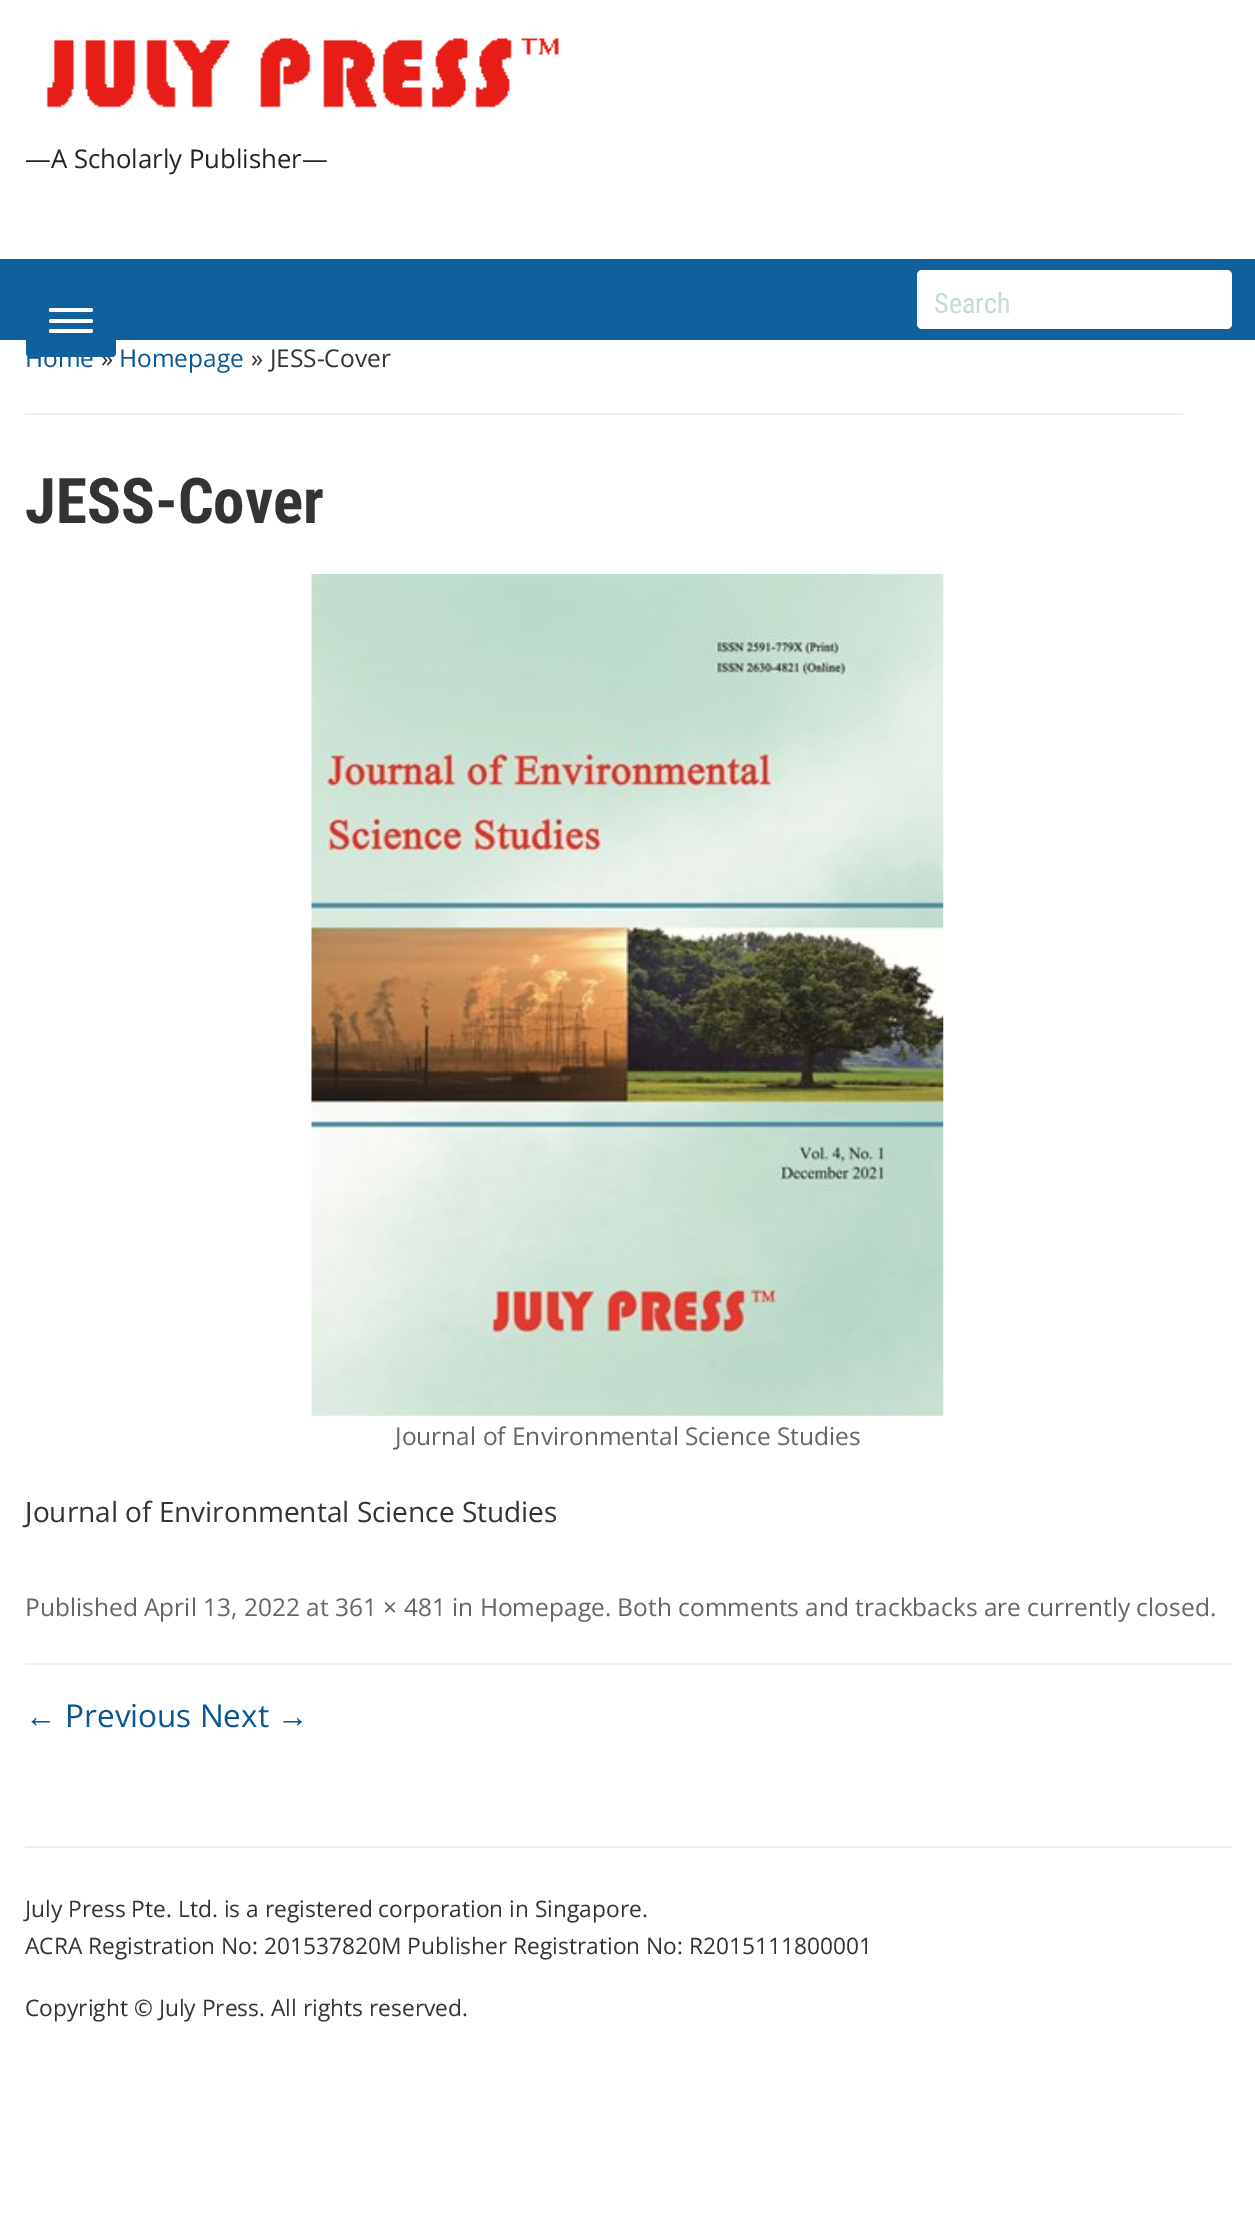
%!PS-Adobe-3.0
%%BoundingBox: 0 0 1255 2238
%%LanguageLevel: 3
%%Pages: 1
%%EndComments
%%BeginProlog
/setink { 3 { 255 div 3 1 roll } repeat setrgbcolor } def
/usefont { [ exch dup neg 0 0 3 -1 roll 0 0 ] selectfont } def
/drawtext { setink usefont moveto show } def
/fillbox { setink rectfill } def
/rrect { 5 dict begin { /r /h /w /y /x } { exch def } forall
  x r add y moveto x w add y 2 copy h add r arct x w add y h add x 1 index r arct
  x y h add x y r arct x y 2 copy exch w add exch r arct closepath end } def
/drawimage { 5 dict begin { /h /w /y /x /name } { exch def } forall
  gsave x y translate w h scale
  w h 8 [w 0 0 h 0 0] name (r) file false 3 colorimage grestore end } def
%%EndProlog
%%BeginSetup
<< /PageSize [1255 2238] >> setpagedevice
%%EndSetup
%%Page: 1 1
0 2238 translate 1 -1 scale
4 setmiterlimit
0 0 1255 2238 255 255 255 fillbox
(assets/img1.rgb) 46 38 513 70 drawimage
(—A Scholarly Publisher—) 25 168 /OpenSans-Regular 25.75 35 35 35 drawtext
0 259 1255 81 17 96 158 fillbox
(Home) 25 367 /OpenSans-Regular 24.5 10 87 148 drawtext
(») 101 367 /OpenSans-Regular 24.5 51 51 51 drawtext
17 96 158 setink
26 284 90 73 4 rrect fill
255 255 255 setink
49 308 44 4 2 rrect fill
49 319 44 4 2 rrect fill
49 329 44 4 2 rrect fill
917 270 315 59 5 rrect fill
(Search) 934 313 /RobotoCondensed-Regular 28 198 217 219 drawtext
25 413 1158 2 238 238 238 fillbox
(Homepage) 119 367 /OpenSans-Regular 24.5 10 87 148 drawtext
(» JESS-Cover) 251 367 /OpenSans-Regular 24.5 51 51 51 drawtext
(JESS-Cover) 25 523 /RobotoCondensed-Bold 63 51 51 51 drawtext
(assets/img2.rgb) 311 574 633 842 drawimage
(Journal of Environmental Science Studies) 395 1445 /OpenSans-Regular 24.5 102 102 102 drawtext
(Journal of Environmental Science Studies) 25 1522 /OpenSans-Regular 28 51 51 51 drawtext
25 1663 1207 2 238 238 238 fillbox
(Published April 13, 2022 at 361 × 481 in Homepage. Both comments and trackbacks are currently closed.) 25 1616 /OpenSans-Regular 24.5 102 102 102 drawtext
(←) 25 1727 /LiberationSans-Regular 31.5 10 87 148 drawtext
(Previous Next) 65 1727 /OpenSans-Regular 31.5 10 87 148 drawtext
(→) 277 1727 /LiberationSans-Regular 31.5 10 87 148 drawtext
25 1846 1207 2 238 238 238 fillbox
(July Press Pte. Ltd. is a registered corporation in Singapore.) 25 1917 /OpenSans-Regular 22.75 51 51 51 drawtext
(ACRA Registration No: 201537820M Publisher Registration No: R2015111800001) 25 1954 /OpenSans-Regular 22.75 51 51 51 drawtext
(Copyright © July Press. All rights reserved.) 25 2016 /OpenSans-Regular 22.75 51 51 51 drawtext
showpage
%%EOF
